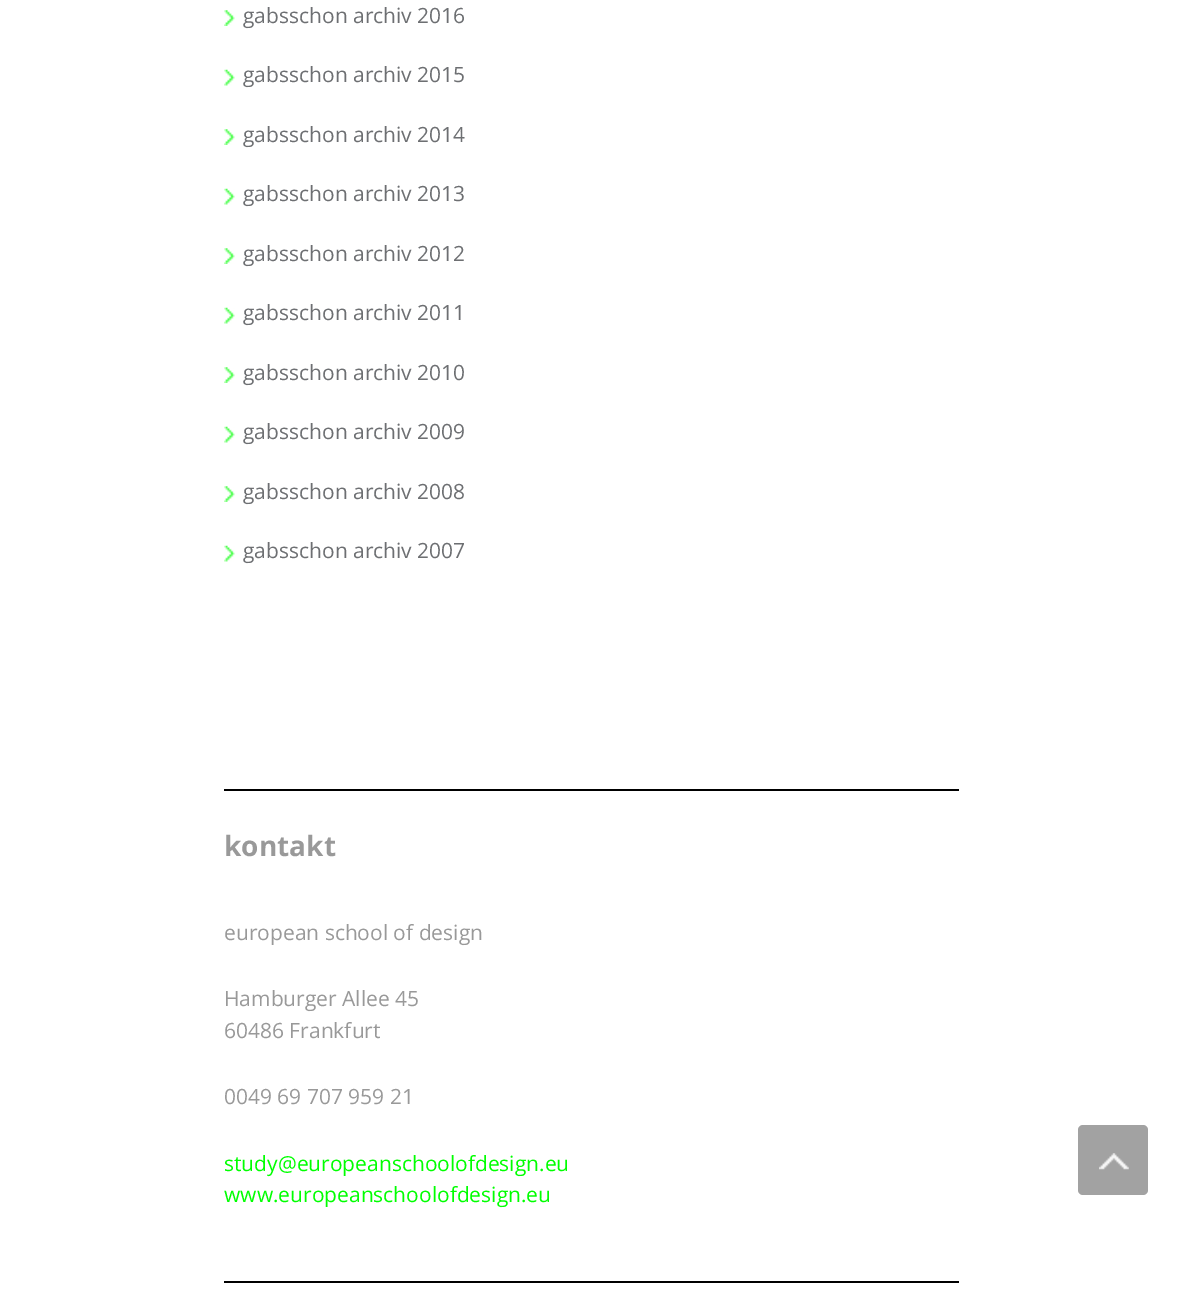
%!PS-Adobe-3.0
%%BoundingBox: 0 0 1182 1294
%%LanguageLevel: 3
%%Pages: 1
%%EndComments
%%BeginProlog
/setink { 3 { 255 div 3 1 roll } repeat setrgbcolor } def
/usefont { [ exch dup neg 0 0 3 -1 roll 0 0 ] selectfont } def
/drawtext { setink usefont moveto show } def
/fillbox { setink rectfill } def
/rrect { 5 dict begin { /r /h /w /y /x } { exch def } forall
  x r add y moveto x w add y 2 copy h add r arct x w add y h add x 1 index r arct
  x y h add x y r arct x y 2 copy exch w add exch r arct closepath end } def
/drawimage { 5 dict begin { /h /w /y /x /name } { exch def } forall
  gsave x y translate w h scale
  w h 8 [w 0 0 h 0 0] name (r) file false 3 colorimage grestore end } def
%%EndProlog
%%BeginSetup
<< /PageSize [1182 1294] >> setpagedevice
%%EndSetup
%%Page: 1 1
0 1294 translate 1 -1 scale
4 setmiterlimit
0 0 1182 1294 255 255 255 fillbox
(assets/img1.rgb) 224 10 11 16 drawimage
(gabsschon archiv 2016) 243 23 /OpenSans-Regular 21 109 111 114 drawtext
(assets/img2.rgb) 224 69 11 17 drawimage
(gabsschon archiv 2015) 243 82 /OpenSans-Regular 21 109 111 114 drawtext
(assets/img1.rgb) 224 129 11 16 drawimage
(gabsschon archiv 2014) 243 142 /OpenSans-Regular 21 109 111 114 drawtext
(assets/img2.rgb) 224 188 11 17 drawimage
(gabsschon archiv 2013) 243 201 /OpenSans-Regular 21 109 111 114 drawtext
(assets/img1.rgb) 224 248 11 16 drawimage
(gabsschon archiv 2012) 243 261 /OpenSans-Regular 21 109 111 114 drawtext
(assets/img2.rgb) 224 307 11 17 drawimage
(gabsschon archiv 2011) 243 320 /OpenSans-Regular 21 109 111 114 drawtext
(assets/img1.rgb) 224 367 11 16 drawimage
(gabsschon archiv 2010) 243 380 /OpenSans-Regular 21 109 111 114 drawtext
(assets/img2.rgb) 224 426 11 17 drawimage
(gabsschon archiv 2009) 243 439 /OpenSans-Regular 21 109 111 114 drawtext
(assets/img1.rgb) 224 486 11 16 drawimage
(gabsschon archiv 2008) 243 499 /OpenSans-Regular 21 109 111 114 drawtext
(assets/img2.rgb) 224 545 11 17 drawimage
(gabsschon archiv 2007) 243 558 /OpenSans-Regular 21 109 111 114 drawtext
224 789 735 2 0 0 0 fillbox
(kontakt) 224 856 /OpenSans-Bold 28 153 153 153 drawtext
(european school of design) 224 940 /OpenSans-Regular 21 153 153 153 drawtext
(Hamburger Allee 45) 224 1006 /OpenSans-Regular 21 153 153 153 drawtext
(60486 Frankfurt) 224 1038 /OpenSans-Regular 21 153 153 153 drawtext
(0049 69 707 959 21) 224 1104 /OpenSans-Regular 21 153 153 153 drawtext
(study@europeanschoolofdesign.eu) 224 1171 /OpenSans-Regular 21 0 255 0 drawtext
(www.europeanschoolofdesign.eu) 224 1202 /OpenSans-Regular 21 0 255 0 drawtext
224 1281 735 2 0 0 0 fillbox
162 162 162 setink
1078 1125 70 70 5 rrect fill
(assets/img3.rgb) 1099 1153 30 17 drawimage
showpage
%%EOF
